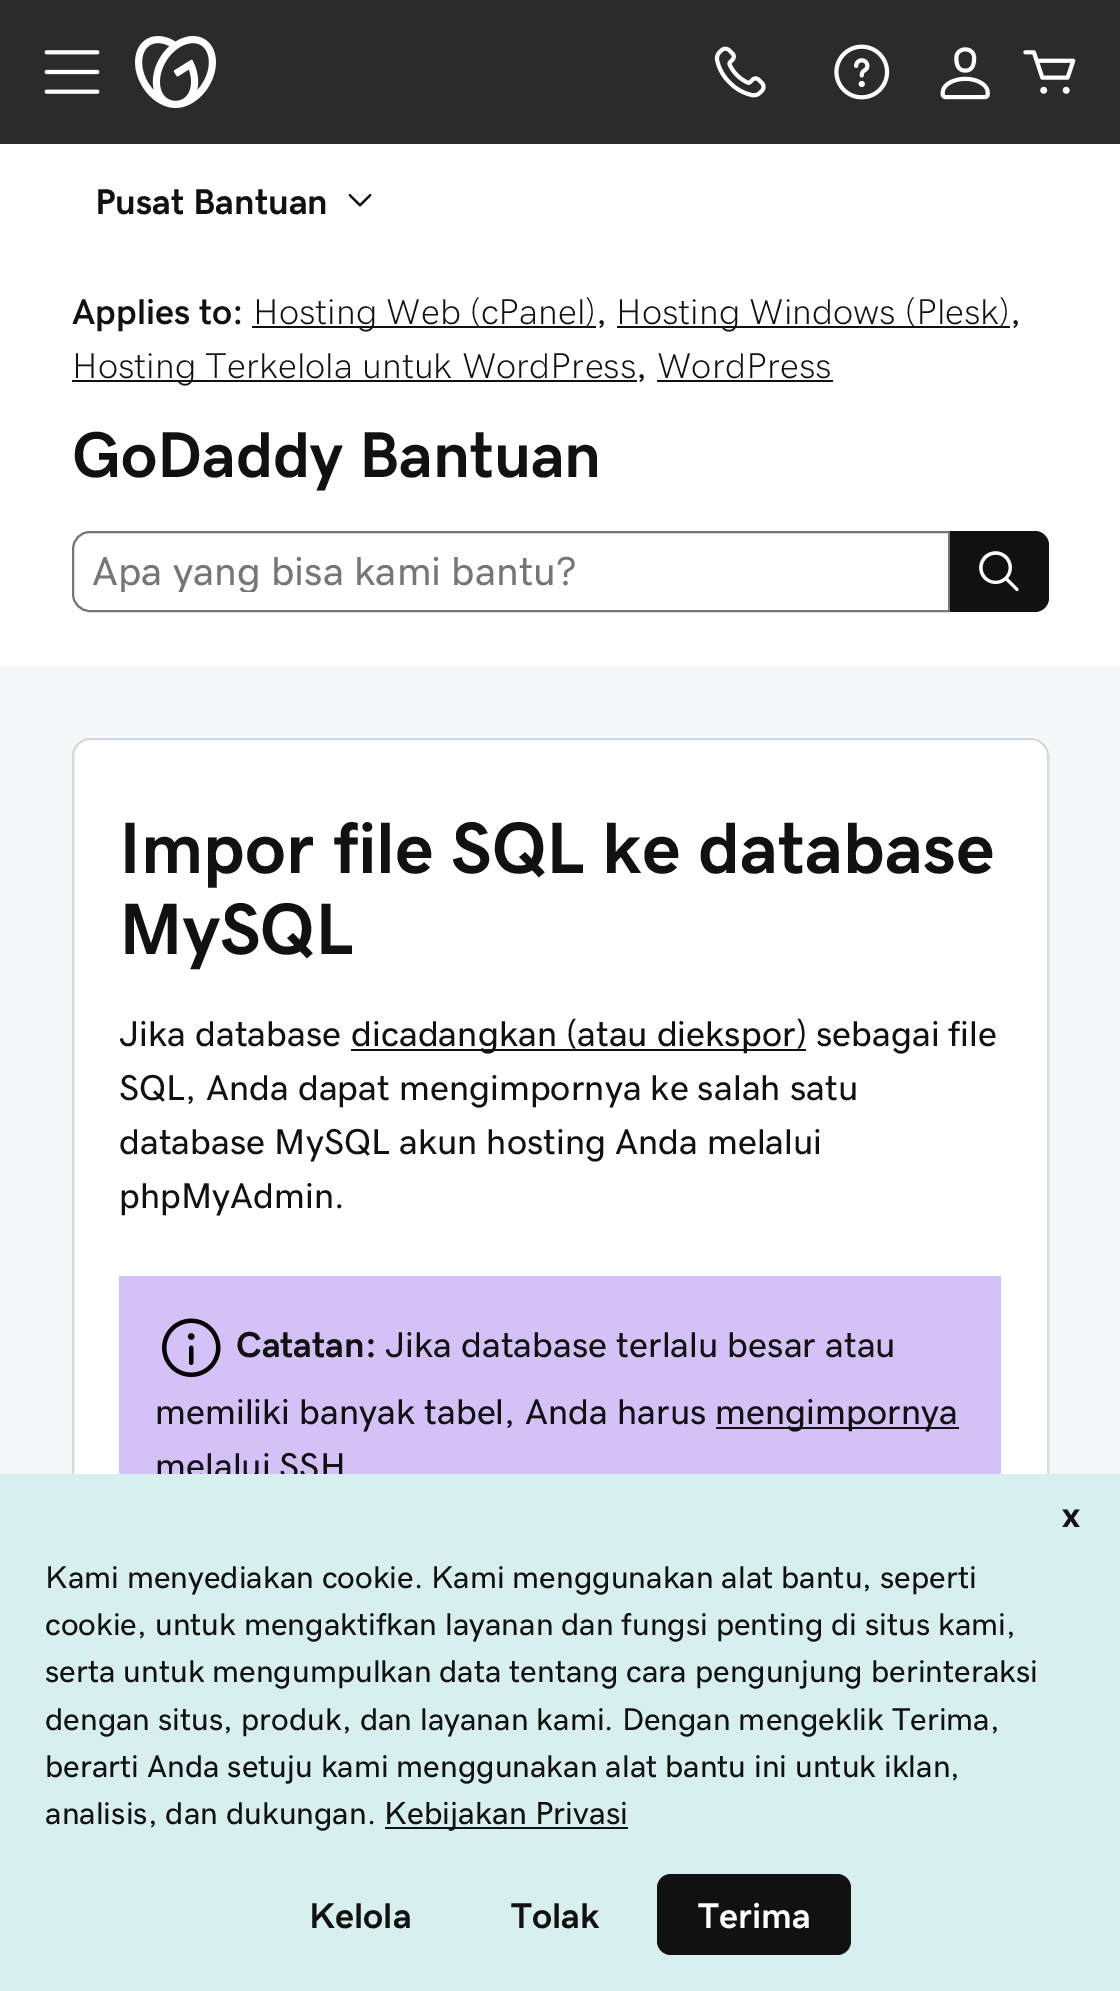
%!PS-Adobe-3.0
%%BoundingBox: 0 0 1120 1991
%%LanguageLevel: 3
%%Pages: 1
%%EndComments
%%BeginProlog
/setink { 3 { 255 div 3 1 roll } repeat setrgbcolor } def
/usefont { [ exch dup neg 0 0 3 -1 roll 0 0 ] selectfont } def
/drawtext { setink usefont moveto show } def
/fillbox { setink rectfill } def
/rrect { 5 dict begin { /r /h /w /y /x } { exch def } forall
  x r add y moveto x w add y 2 copy h add r arct x w add y h add x 1 index r arct
  x y h add x y r arct x y 2 copy exch w add exch r arct closepath end } def
/drawimage { 5 dict begin { /h /w /y /x /name } { exch def } forall
  gsave x y translate w h scale
  w h 8 [w 0 0 h 0 0] name (r) file false 3 colorimage grestore end } def
%%EndProlog
%%BeginSetup
<< /PageSize [1120 1991] >> setpagedevice
%%EndSetup
%%Page: 1 1
0 1991 translate 1 -1 scale
4 setmiterlimit
0 0 1120 1991 255 255 255 fillbox
0 0 1120 144 43 43 43 fillbox
(assets/img1.rgb) 44 50 56 44 drawimage
(assets/img2.rgb) 135 36 81 72 drawimage
(assets/img3.rgb) 714 46 52 52 drawimage
(assets/img4.rgb) 834 44 56 56 drawimage
(assets/img5.rgb) 940 47 50 53 drawimage
(assets/img6.rgb) 1023 50 53 44 drawimage
(Pusat Bantuan) 95 214 /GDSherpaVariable-Bold 36 17 17 17 drawtext
(assets/img7.rgb) 348 193 24 14 drawimage
(Applies to:) 72 324 /GDSherpaVariable-SemiBold 36 17 17 17 drawtext
252 326 344 2 17 17 17 fillbox
(Hosting Web \(cPanel\)) 253 324 /GDSherpaVariable-ExtraLight 36 17 17 17 drawtext
(,) 596 324 /GDSherpaVariable-Regular 36 17 17 17 drawtext
617 326 393 2 17 17 17 fillbox
(Hosting Windows \(Plesk\)) 616 324 /GDSherpaVariable-ExtraLight 36 17 17 17 drawtext
(,) 1010 324 /GDSherpaVariable-Regular 36 17 17 17 drawtext
72 380 565 2 17 17 17 fillbox
(Hosting Terkelola untuk WordPress) 72 378 /GDSherpaVariable-ExtraLight 36 17 17 17 drawtext
(,) 636 378 /GDSherpaVariable-Regular 36 17 17 17 drawtext
(WordPress) 657 378 /GDSherpaVariable-ExtraLight 36 17 17 17 drawtext
657 380 176 2 17 17 17 fillbox
(GoDaddy Bantuan) 72 477 /GDSherpaVariable-Bold 64.75 17 17 17 drawtext
118 118 118 setink
2 setlinewidth
90 532 moveto 949 532 lineto 949 611 lineto 90 611 lineto 80.5 611 73 603.5 73 594 curveto 73 549 lineto 73 539.5 80.5 532 90 532 curveto closepath stroke
gsave
92 551 837 41 rectclip
(Apa yang bisa kami bantu?) 92 585 /GDSherpaVariable-Regular 40.5 118 118 118 drawtext
grestore
17 17 17 setink
950 531 moveto 1035 531 lineto 1042.5 531 1049 537.5 1049 545 curveto 1049 598 lineto 1049 605.5 1042.5 612 1035 612 curveto 950 612 lineto closepath fill
(assets/img8.rgb) 979 551 40 41 drawimage
0 666 1120 808 245 247 248 fillbox
255 255 255 setink
73 739 975 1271 17 rrect gsave fill grestore
212 219 224 setink
stroke
(Impor file SQL ke database) 119 873 /GDSherpaVariable-ExtraBold 73 17 17 17 drawtext
(MySQL) 119 954 /GDSherpaVariable-ExtraBold 73 17 17 17 drawtext
(Jika database) 119 1046 /GDSherpaVariable-Regular 36 17 17 17 drawtext
351 1049 455 2 17 17 17 fillbox
(dicadangkan \(atau diekspor\) sebagai file) 351 1046 /GDSherpaVariable-Regular 36 17 17 17 drawtext
(SQL, Anda dapat mengimpornya ke salah satu) 119 1100 /GDSherpaVariable-Regular 36 17 17 17 drawtext
(database MySQL akun hosting Anda melalui) 119 1154 /GDSherpaVariable-Regular 36 17 17 17 drawtext
(phpMyAdmin.) 119 1208 /GDSherpaVariable-Regular 36 17 17 17 drawtext
119 1276 882 198 211 193 247 fillbox
(assets/img9.rgb) 162 1318 59 59 drawimage
(Catatan:) 236 1357 /GDSherpaVariable-Bold 36 17 17 17 drawtext
(Jika database terlalu besar atau) 385 1357 /GDSherpaVariable-Regular 36 17 17 17 drawtext
(memiliki banyak tabel, Anda harus) 155 1424 /GDSherpaVariable-Regular 36 17 17 17 drawtext
716 1427 243 2 17 17 17 fillbox
(mengimpornya) 715 1424 /GDSherpaVariable-Regular 36 17 17 17 drawtext
(melalui SSH) 155 1478 /GDSherpaVariable-Regular 36 17 17 17 drawtext
0 1474 1120 517 216 239 239 fillbox
(x) 1062 1527 /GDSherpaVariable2-Bold 36 17 17 17 drawtext
(Kami menyediakan cookie. Kami menggunakan alat bantu, seperti) 45 1588 /GDSherpaVariable-Regular 31.5 17 17 17 drawtext
(cookie, untuk mengaktifkan layanan dan fungsi penting di situs kami,) 45 1635 /GDSherpaVariable-Regular 31.5 17 17 17 drawtext
(serta untuk mengumpulkan data tentang cara pengunjung berinteraksi) 45 1682 /GDSherpaVariable-Regular 31.5 17 17 17 drawtext
(dengan situs, produk, dan layanan kami. Dengan mengeklik Terima,) 45 1730 /GDSherpaVariable-Regular 31.5 17 17 17 drawtext
(berarti Anda setuju kami menggunakan alat bantu ini untuk iklan,) 45 1777 /GDSherpaVariable-Regular 31.5 17 17 17 drawtext
(analisis, dan dukungan.) 45 1824 /GDSherpaVariable-Regular 31.5 17 17 17 drawtext
385 1827 243 2 17 17 17 fillbox
(Kebijakan Privasi) 384 1824 /GDSherpaVariable-Regular 32 17 17 17 drawtext
(Kelola) 309 1928 /GDSherpaVariable2-Bold 36 17 17 17 drawtext
(Tolak) 511 1928 /GDSherpaVariable2-Bold 36 17 17 17 drawtext
657 1874 194 81 14 rrect fill
(Terima) 698 1928 /GDSherpaVariable2-Bold 36 255 255 255 drawtext
showpage
%%EOF
